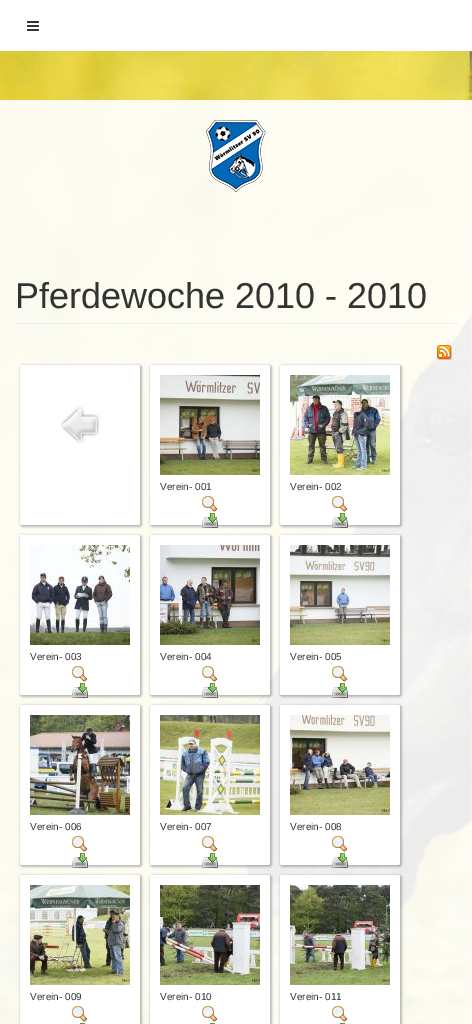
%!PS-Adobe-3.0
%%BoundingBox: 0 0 472 1024
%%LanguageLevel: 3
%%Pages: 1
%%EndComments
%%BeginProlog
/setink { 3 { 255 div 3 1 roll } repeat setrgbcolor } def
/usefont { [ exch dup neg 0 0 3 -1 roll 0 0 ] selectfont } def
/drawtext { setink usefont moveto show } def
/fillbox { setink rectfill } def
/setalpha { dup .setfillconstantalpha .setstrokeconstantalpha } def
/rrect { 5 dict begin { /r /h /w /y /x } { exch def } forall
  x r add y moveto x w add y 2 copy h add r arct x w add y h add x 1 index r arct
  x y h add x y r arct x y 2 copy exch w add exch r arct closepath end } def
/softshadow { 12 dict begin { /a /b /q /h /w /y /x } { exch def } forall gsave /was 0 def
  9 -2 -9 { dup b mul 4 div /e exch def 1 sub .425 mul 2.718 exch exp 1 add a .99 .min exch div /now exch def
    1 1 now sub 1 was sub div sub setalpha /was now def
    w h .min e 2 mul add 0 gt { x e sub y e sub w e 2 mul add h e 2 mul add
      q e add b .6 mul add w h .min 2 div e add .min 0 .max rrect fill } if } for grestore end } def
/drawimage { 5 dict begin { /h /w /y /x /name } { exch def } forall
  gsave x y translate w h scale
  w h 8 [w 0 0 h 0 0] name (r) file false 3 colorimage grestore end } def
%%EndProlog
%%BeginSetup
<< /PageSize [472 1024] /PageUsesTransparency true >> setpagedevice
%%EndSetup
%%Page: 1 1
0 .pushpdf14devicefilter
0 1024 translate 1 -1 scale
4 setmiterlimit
0 0 472 1024 255 255 255 fillbox
(assets/img1.rgb) 0 51 472 973 drawimage
(assets/img2.rgb) 27 21 12 10 drawimage
0.92 setalpha
0 100 472 118 255 255 255 fillbox
1 setalpha
(assets/img3.rgb) 206 120 60 72 drawimage
0.92 setalpha
0 218 472 20 255 255 255 fillbox
0 238 472 786 255 255 255 fillbox
1 setalpha
15 323 442 1 238 238 238 fillbox
(Pferdewoche 2010 - 2010) 15 308 /LiberationSans-Regular 36 51 51 51 drawtext
(assets/img4.rgb) 437 345 15 15 drawimage
120 120 120 setink
20 365 122 162 3 1 0.5 softshadow
255 255 255 setink
20 365 120 160 2 rrect fill
(assets/img5.rgb) 61 406 39 38 drawimage
120 120 120 setink
150 365 122 162 3 1 0.5 softshadow
255 255 255 setink
150 365 120 160 2 rrect fill
(assets/img6.rgb) 160 375 100 100 drawimage
(Verein- 001) 160 490 /LiberationSans-Regular 10 51 51 51 drawtext
(assets/img7.rgb) 202 496 16 16 drawimage
(assets/img8.rgb) 202 513 16 15 drawimage
120 120 120 setink
280 365 122 162 3 1 0.5 softshadow
255 255 255 setink
280 365 120 160 2 rrect fill
(assets/img9.rgb) 290 375 100 100 drawimage
(Verein- 002) 290 490 /LiberationSans-Regular 10 51 51 51 drawtext
(assets/img7.rgb) 332 496 16 16 drawimage
(assets/img10.rgb) 332 513 16 15 drawimage
120 120 120 setink
20 535 122 162 3 1 0.5 softshadow
255 255 255 setink
20 535 120 160 2 rrect fill
(assets/img11.rgb) 30 545 100 100 drawimage
(Verein- 003) 30 660 /LiberationSans-Regular 10 51 51 51 drawtext
(assets/img7.rgb) 72 666 16 16 drawimage
(assets/img12.rgb) 72 683 16 15 drawimage
120 120 120 setink
150 535 122 162 3 1 0.5 softshadow
255 255 255 setink
150 535 120 160 2 rrect fill
(assets/img13.rgb) 160 545 100 100 drawimage
(Verein- 004) 160 660 /LiberationSans-Regular 10 51 51 51 drawtext
(assets/img7.rgb) 202 666 16 16 drawimage
(assets/img14.rgb) 202 683 16 15 drawimage
120 120 120 setink
280 535 122 162 3 1 0.5 softshadow
255 255 255 setink
280 535 120 160 2 rrect fill
(assets/img15.rgb) 290 545 100 100 drawimage
(Verein- 005) 290 660 /LiberationSans-Regular 10 51 51 51 drawtext
(assets/img7.rgb) 332 666 16 16 drawimage
(assets/img16.rgb) 332 683 16 15 drawimage
120 120 120 setink
20 705 122 162 3 1 0.5 softshadow
255 255 255 setink
20 705 120 160 2 rrect fill
(assets/img17.rgb) 30 715 100 100 drawimage
(Verein- 006) 30 830 /LiberationSans-Regular 10 51 51 51 drawtext
(assets/img7.rgb) 72 836 16 16 drawimage
(assets/img18.rgb) 72 853 16 15 drawimage
120 120 120 setink
150 705 122 162 3 1 0.5 softshadow
255 255 255 setink
150 705 120 160 2 rrect fill
(assets/img19.rgb) 160 715 100 100 drawimage
(Verein- 007) 160 830 /LiberationSans-Regular 10 51 51 51 drawtext
(assets/img7.rgb) 202 836 16 16 drawimage
(assets/img20.rgb) 202 853 16 15 drawimage
120 120 120 setink
280 705 122 162 3 1 0.5 softshadow
255 255 255 setink
280 705 120 160 2 rrect fill
(assets/img21.rgb) 290 715 100 100 drawimage
(Verein- 008) 290 830 /LiberationSans-Regular 10 51 51 51 drawtext
(assets/img7.rgb) 332 836 16 16 drawimage
(assets/img22.rgb) 332 853 16 15 drawimage
120 120 120 setink
20 875 122 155 3 1 0.5 softshadow
255 255 255 setink
20 875 120 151 2 rrect fill
(assets/img23.rgb) 30 885 100 100 drawimage
(Verein- 009) 30 1000 /LiberationSans-Regular 10 51 51 51 drawtext
(assets/img7.rgb) 72 1006 16 16 drawimage
(assets/img24.rgb) 80 1023 5 1 drawimage
120 120 120 setink
150 875 122 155 3 1 0.5 softshadow
255 255 255 setink
150 875 120 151 2 rrect fill
(assets/img25.rgb) 160 885 100 100 drawimage
(Verein- 010) 160 1000 /LiberationSans-Regular 10 51 51 51 drawtext
(assets/img7.rgb) 202 1006 16 16 drawimage
(assets/img24.rgb) 210 1023 5 1 drawimage
120 120 120 setink
280 875 122 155 3 1 0.5 softshadow
255 255 255 setink
280 875 120 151 2 rrect fill
(assets/img26.rgb) 290 885 100 100 drawimage
(Verein- 011) 290 1000 /LiberationSans-Regular 10 51 51 51 drawtext
(assets/img7.rgb) 332 1006 16 16 drawimage
(assets/img24.rgb) 340 1023 5 1 drawimage
.poppdf14devicefilter showpage
%%EOF
